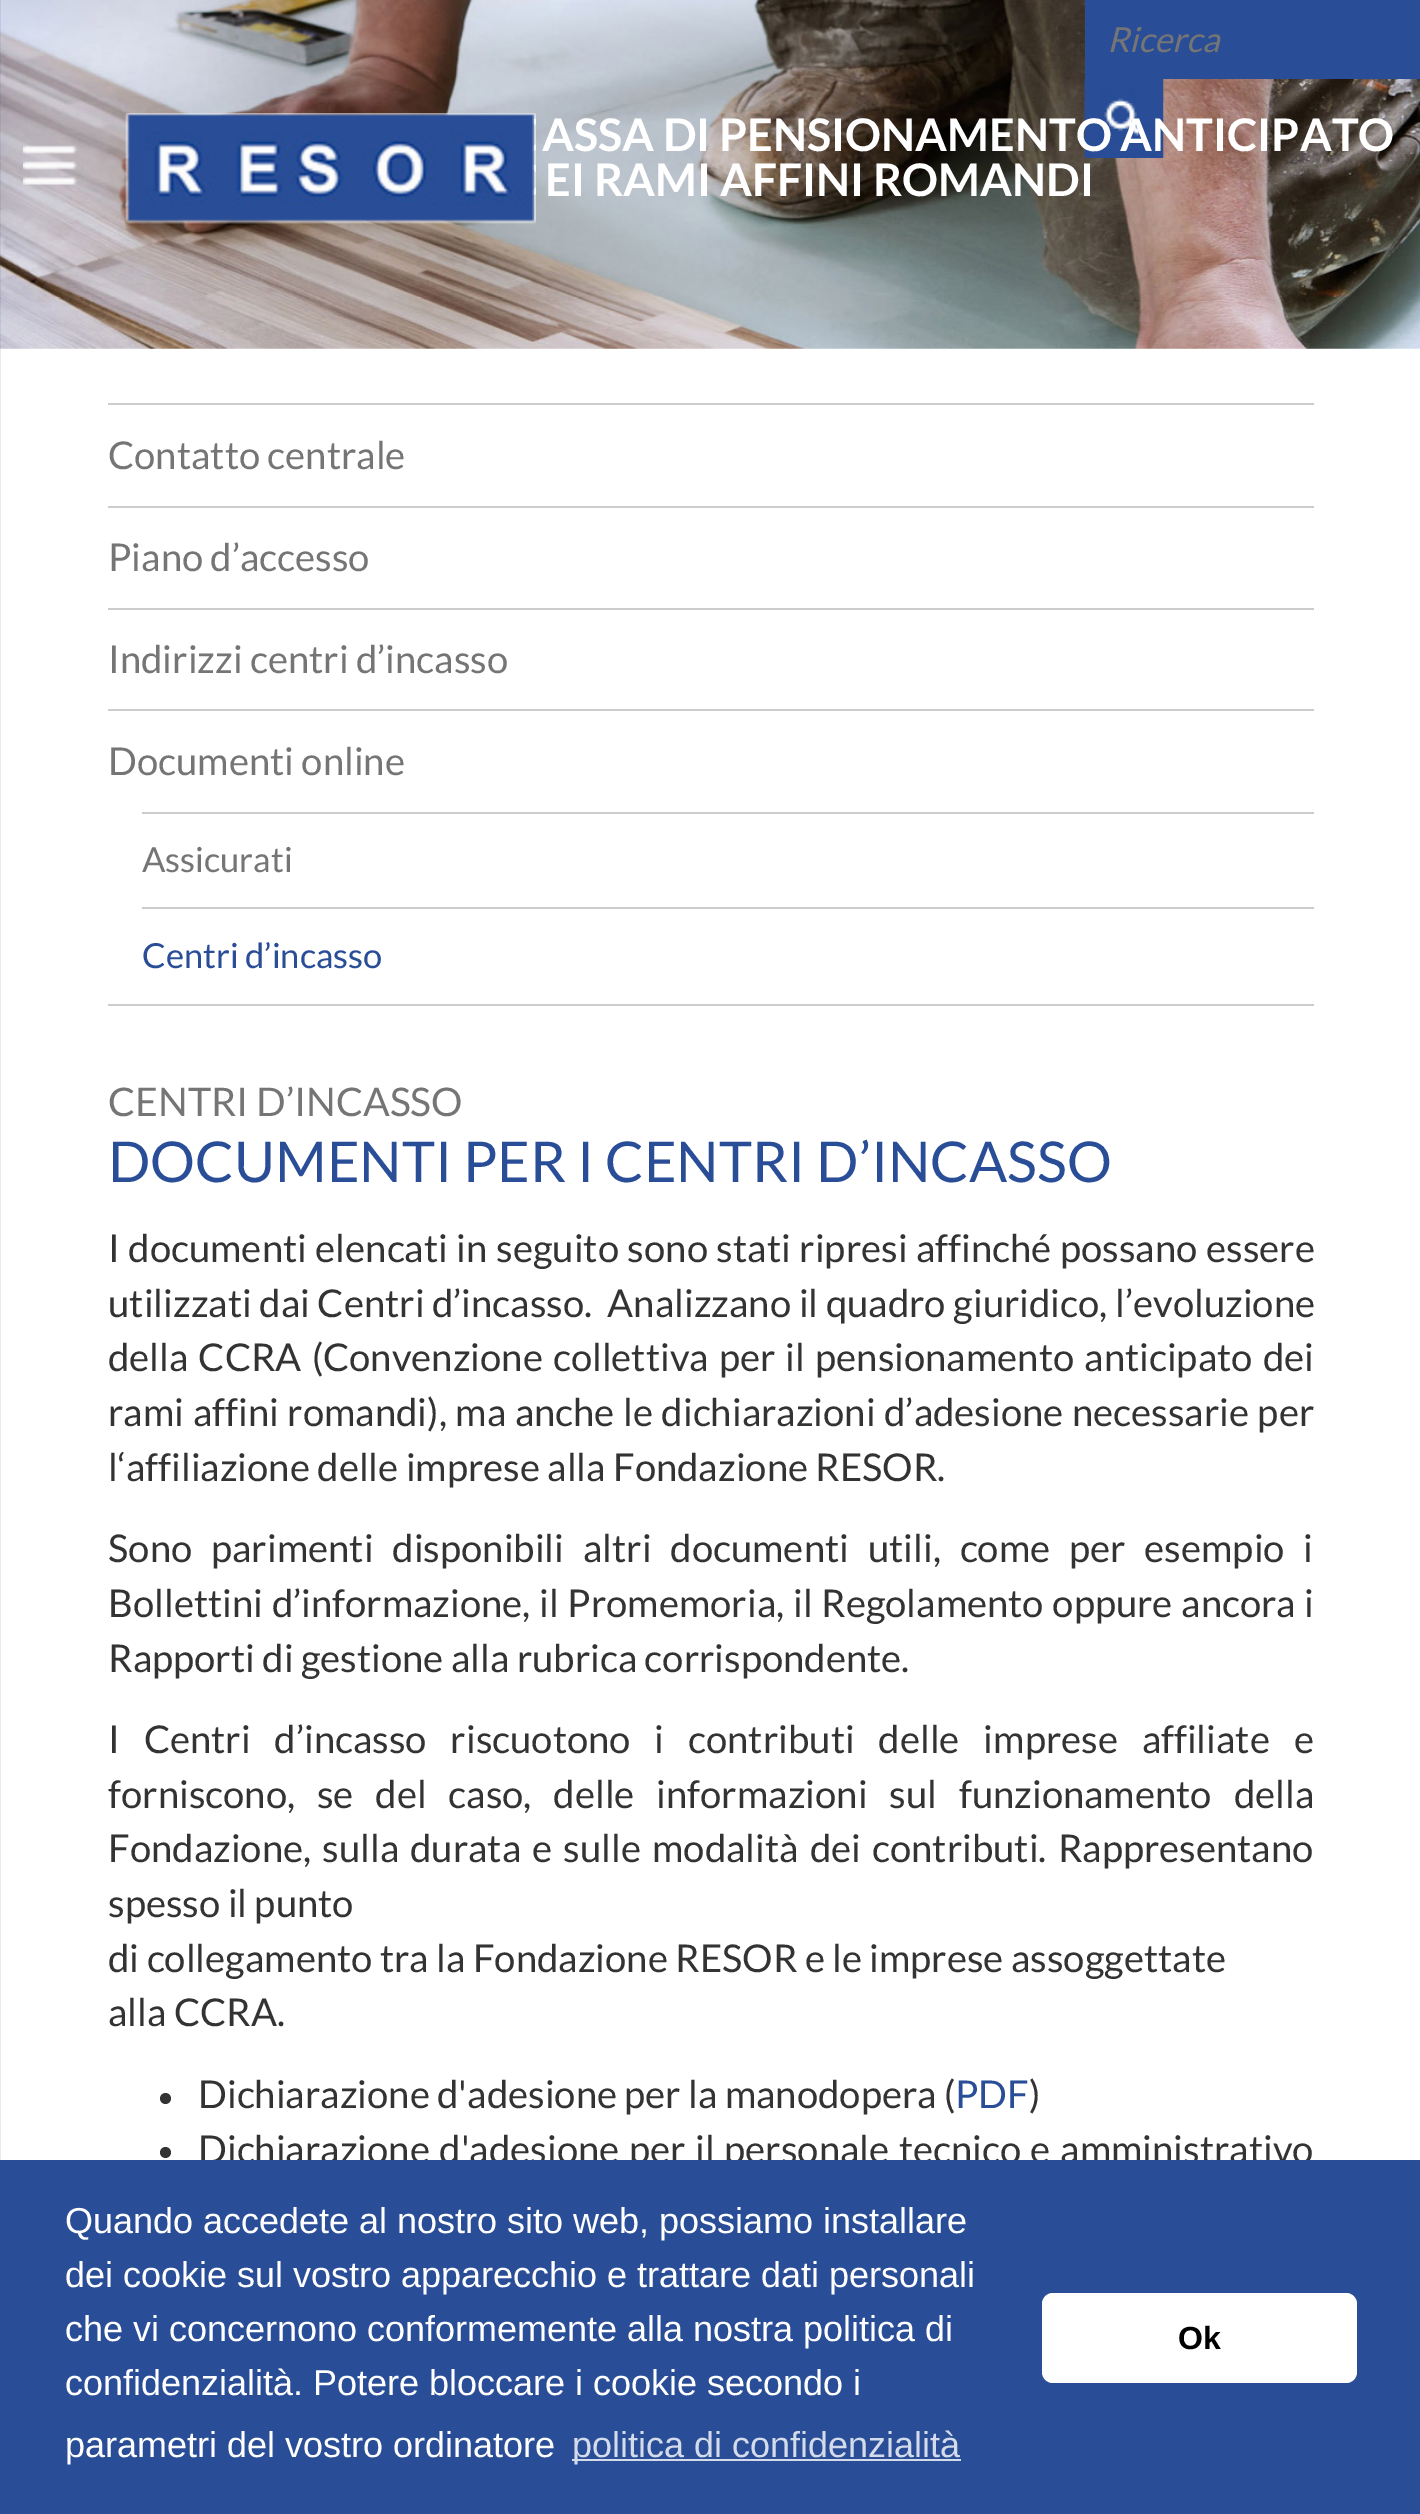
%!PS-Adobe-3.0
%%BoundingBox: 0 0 1420 2514
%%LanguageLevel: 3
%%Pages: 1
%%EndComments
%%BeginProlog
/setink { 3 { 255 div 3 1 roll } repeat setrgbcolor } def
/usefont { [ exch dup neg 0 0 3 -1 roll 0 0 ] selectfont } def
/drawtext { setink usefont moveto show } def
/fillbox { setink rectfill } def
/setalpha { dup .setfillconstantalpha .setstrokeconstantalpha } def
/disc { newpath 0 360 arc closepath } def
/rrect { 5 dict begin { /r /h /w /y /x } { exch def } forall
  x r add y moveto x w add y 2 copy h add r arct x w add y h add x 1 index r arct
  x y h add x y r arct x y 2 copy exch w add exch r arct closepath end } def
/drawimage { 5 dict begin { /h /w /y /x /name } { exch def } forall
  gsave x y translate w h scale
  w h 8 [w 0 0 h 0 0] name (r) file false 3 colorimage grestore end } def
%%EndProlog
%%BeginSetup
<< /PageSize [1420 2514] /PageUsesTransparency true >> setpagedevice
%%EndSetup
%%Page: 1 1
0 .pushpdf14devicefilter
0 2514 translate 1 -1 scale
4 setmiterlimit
0 0 1420 2514 255 255 255 fillbox
(assets/img1.rgb) 0 0 1420 349 drawimage
0.11 setalpha
0 0 1 2160 36 73 155 fillbox
1 setalpha
1085 0 335 79 41 77 151 fillbox
(Ricerca) 1107 52 /Lato-Italic 34.5 117 117 117 drawtext
1085 157 78 1 41 77 151 fillbox
(assets/img2.rgb) 1084 78 80 80 drawimage
(assets/img3.rgb) 23 145 54 40 drawimage
(assets/img4.rgb) 125 113 411 111 drawimage
(ASSA DI PENSIONAMENTO ANTICIPATO) 542 151 /Lato-Bold 45 255 255 255 drawtext
(EI RAMI AFFINI ROMANDI) 545 196 /Lato-Bold 45 255 255 255 drawtext
108 403 1206 2 204 204 204 fillbox
108 506 1206 2 204 204 204 fillbox
(Contatto centrale) 108 469 /Lato-Regular 38.25 117 117 117 drawtext
108 608 1206 2 204 204 204 fillbox
(Piano d’accesso) 108 571 /Lato-Regular 38.25 117 117 117 drawtext
108 709 1206 2 204 204 204 fillbox
(Indirizzi centri d’incasso) 108 673 /Lato-Regular 38.25 117 117 117 drawtext
108 1004 1206 2 204 204 204 fillbox
(Documenti online) 108 775 /Lato-Regular 38.25 117 117 117 drawtext
142 812 1172 2 204 204 204 fillbox
142 907 1172 2 204 204 204 fillbox
(Assicurati) 142 872 /Lato-Regular 34.5 117 117 117 drawtext
(Centri d’incasso) 142 968 /Lato-Regular 34.5 41 77 151 drawtext
(CENTRI D’INCASSO) 108 1116 /Lato-Regular 39.4 117 117 117 drawtext
(DOCUMENTI PER I CENTRI D’INCASSO) 108 1182 /Lato-Regular 56.25 41 77 151 drawtext
/Lato-Regular 38.25 usefont
51 51 51 setink
108 1262 moveto 1.25 0 32 (I documenti elencati in seguito sono stati ripresi affinché possano essere) widthshow
108 1317 moveto 0.25 0 32 (utilizzati dai Centri d’incasso.  Analizzano il quadro giuridico, l’evoluzione) widthshow
108 1371 moveto 2.75 0 32 (della CCRA \(Convenzione collettiva per il pensionamento anticipato dei) widthshow
108 1426 moveto 1.25 0 32 (rami affini romandi\), ma anche le dichiarazioni d’adesione necessarie per) widthshow
(l‘affiliazione delle imprese alla Fondazione RESOR.) 108 1481 /Lato-Regular 38.25 51 51 51 drawtext
108 1562 moveto 11.5 0 32 (Sono parimenti disponibili altri documenti utili, come per esempio i) widthshow
108 1617 moveto 1.25 0 32 (Bollettini d’informazione, il Promemoria, il Regolamento oppure ancora i) widthshow
(Rapporti di gestione alla rubrica corrispondente.) 108 1672 /Lato-Regular 38.25 51 51 51 drawtext
108 1753 moveto 16.5 0 32 (I Centri d’incasso riscuotono i contributi delle imprese affiliate e) widthshow
108 1808 moveto 14.5 0 32 (forniscono, se del caso, delle informazioni sul funzionamento della) widthshow
108 1862 moveto 3.75 0 32 (Fondazione, sulla durata e sulle modalità dei contributi. Rappresentano) widthshow
(spesso il punto) 108 1917 /Lato-Regular 38.25 51 51 51 drawtext
(di collegamento tra la Fondazione RESOR e le imprese assoggettate) 108 1972 /Lato-Regular 38.25 51 51 51 drawtext
(alla CCRA.) 108 2026 /Lato-Regular 38.25 51 51 51 drawtext
165.5 2098.5 5.5 disc fill
(Dichiarazione d'adesione per la manodopera \() 198 2108 /Lato-Regular 38.25 51 51 51 drawtext
(PDF) 955 2108 /Lato-Regular 38.25 41 77 151 drawtext
(\)) 1029 2108 /Lato-Regular 38.25 51 51 51 drawtext
165.5 2152.5 5.5 disc fill
198 2163 moveto 2.25 0 32 (Dichiarazione d'adesione per il personale tecnico e amministrativo) widthshow
0 2160 1420 354 41 77 151 fillbox
(Quando accedete al nostro sito web, possiamo installare) 65 2233 /LiberationSans-Regular 36 255 255 255 drawtext
(dei cookie sul vostro apparecchio e trattare dati personali) 65 2287 /LiberationSans-Regular 36 255 255 255 drawtext
(che vi concernono conformemente alla nostra politica di) 65 2341 /LiberationSans-Regular 36 255 255 255 drawtext
(confidenzialità. Potere bloccare i cookie secondo i) 65 2395 /LiberationSans-Regular 36 255 255 255 drawtext
(parametri del vostro ordinatore) 65 2457 /LiberationSans-Regular 36 255 255 255 drawtext
572 2459 389 2 212 219 234 fillbox
(politica di confidenzialità) 572 2457 /LiberationSans-Regular 36 212 219 234 drawtext
255 255 255 setink
1042 2293 315 90 11 rrect fill
(Ok) 1178 2349 /LiberationSans-Bold 32 0 0 0 drawtext
.poppdf14devicefilter showpage
%%EOF
